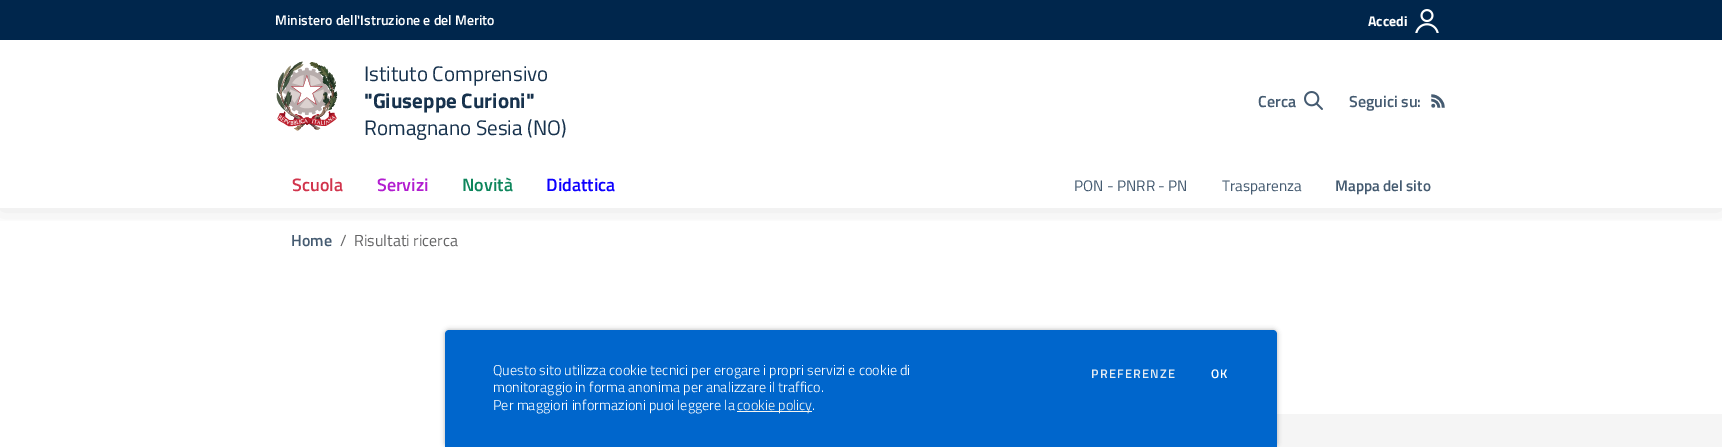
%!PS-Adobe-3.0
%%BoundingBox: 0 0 1722 447
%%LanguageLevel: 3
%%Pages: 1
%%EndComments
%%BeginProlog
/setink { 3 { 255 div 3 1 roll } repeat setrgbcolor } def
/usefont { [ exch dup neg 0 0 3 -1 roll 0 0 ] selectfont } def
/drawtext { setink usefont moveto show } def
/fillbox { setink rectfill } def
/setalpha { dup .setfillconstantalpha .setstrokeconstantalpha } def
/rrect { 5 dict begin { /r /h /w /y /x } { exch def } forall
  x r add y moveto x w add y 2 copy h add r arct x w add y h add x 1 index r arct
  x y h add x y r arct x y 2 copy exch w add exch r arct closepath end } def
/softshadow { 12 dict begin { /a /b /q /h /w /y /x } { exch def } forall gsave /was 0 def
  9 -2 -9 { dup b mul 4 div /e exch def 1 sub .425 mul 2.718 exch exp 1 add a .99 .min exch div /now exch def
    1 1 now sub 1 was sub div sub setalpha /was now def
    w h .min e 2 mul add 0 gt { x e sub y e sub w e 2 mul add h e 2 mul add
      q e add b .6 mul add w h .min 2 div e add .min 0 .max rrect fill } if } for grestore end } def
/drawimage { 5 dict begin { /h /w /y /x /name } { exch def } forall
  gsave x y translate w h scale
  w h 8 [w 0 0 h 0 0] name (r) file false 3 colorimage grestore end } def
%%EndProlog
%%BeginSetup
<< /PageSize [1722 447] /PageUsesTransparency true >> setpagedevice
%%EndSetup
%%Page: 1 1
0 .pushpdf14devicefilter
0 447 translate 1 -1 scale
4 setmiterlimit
0 0 1722 447 255 255 255 fillbox
gsave
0 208 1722 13 rectclip
0 0 0 setink
0 2 1722 208 0 12.5 0.1 softshadow
grestore
0 0 1722 40 0 38 76 fillbox
(Ministero dell'Istruzione e del Merito) 275 25 /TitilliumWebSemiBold-SemiBold 14 255 255 255 drawtext
(Accedi) 1368 26 /TitilliumWeb-Bold 14 255 255 255 drawtext
(assets/img1.rgb) 1415 9 24 24 drawimage
(assets/img2.rgb) 276 61 62 70 drawimage
(Istituto Comprensivo) 364 81 /TitilliumWeb-Regular 21 23 50 77 drawtext
("Giuseppe Curioni") 364 108 /TitilliumWeb-Bold 21 23 50 77 drawtext
(Romagnano Sesia \(NO\)) 364 135 /TitilliumWeb-Regular 21 23 50 77 drawtext
(Cerca) 1258 107 /TitilliumWebSemiBold-SemiBold 16 69 91 113 drawtext
(assets/img3.rgb) 1304 91 19 19 drawimage
(Seguici su:) 1349 107 /TitilliumWebSemiBold-SemiBold 16 69 91 113 drawtext
(assets/img4.rgb) 1431 94 14 14 drawimage
(Scuola) 292 191 /TitilliumWebSemiBold-SemiBold 18 209 52 76 drawtext
(Servizi) 377 191 /TitilliumWebSemiBold-SemiBold 18 178 29 208 drawtext
(Novità) 462 191 /TitilliumWebSemiBold-SemiBold 18 14 134 92 drawtext
(Didattica) 546 191 /TitilliumWebSemiBold-SemiBold 18 13 0 255 drawtext
(PON - PNRR - PN) 1074 191 /TitilliumWeb-Regular 15.25 69 91 113 drawtext
(Trasparenza) 1222 191 /TitilliumWeb-Regular 15.25 69 91 113 drawtext
(Mappa del sito) 1335 191 /TitilliumWebSemiBold-SemiBold 15.25 69 91 113 drawtext
(Home) 291 246 /TitilliumWebSemiBold-SemiBold 16 69 91 113 drawtext
(/) 340 246 /TitilliumWeb-Regular 16 101 101 102 drawtext
(Risultati ricerca) 354 246 /TitilliumWeb-Regular 16 101 101 102 drawtext
1277 414 445 33 245 245 245 fillbox
0 0 0 setink
445 330 832 117 4 2.5 0.3 softshadow
0 102 204 setink
449 330 moveto 1273 330 lineto 1275 330 1277 332 1277 334 curveto 1277 447 lineto 445 447 lineto 445 334 lineto 445 332 447 330 449 330 curveto closepath fill
(Questo sito utilizza cookie tecnici per erogare i propri servizi e cookie di) 493 375 /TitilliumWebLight-Light 14.25 255 255 255 drawtext
(monitoraggio in forma anonima per analizzare il traffico.) 493 392 /TitilliumWebLight-Light 14.25 255 255 255 drawtext
(Per maggiori informazioni puoi leggere la) 493 410 /TitilliumWebLight-Light 14.25 255 255 255 drawtext
737 411 75 1 245 245 240 fillbox
(cookie policy) 737 410 /TitilliumWebLight-Light 14.25 245 245 240 drawtext
(.) 812 410 /TitilliumWebLight-Light 14.25 255 255 255 drawtext
/TitilliumWebSemiBold-SemiBold 12.5 usefont
230 236 242 setink
1091 378 moveto 1.25 0 (PREFERENZE) ashow
255 255 255 setink
1211 378 moveto 1.25 0 (OK) ashow
.poppdf14devicefilter showpage
%%EOF
